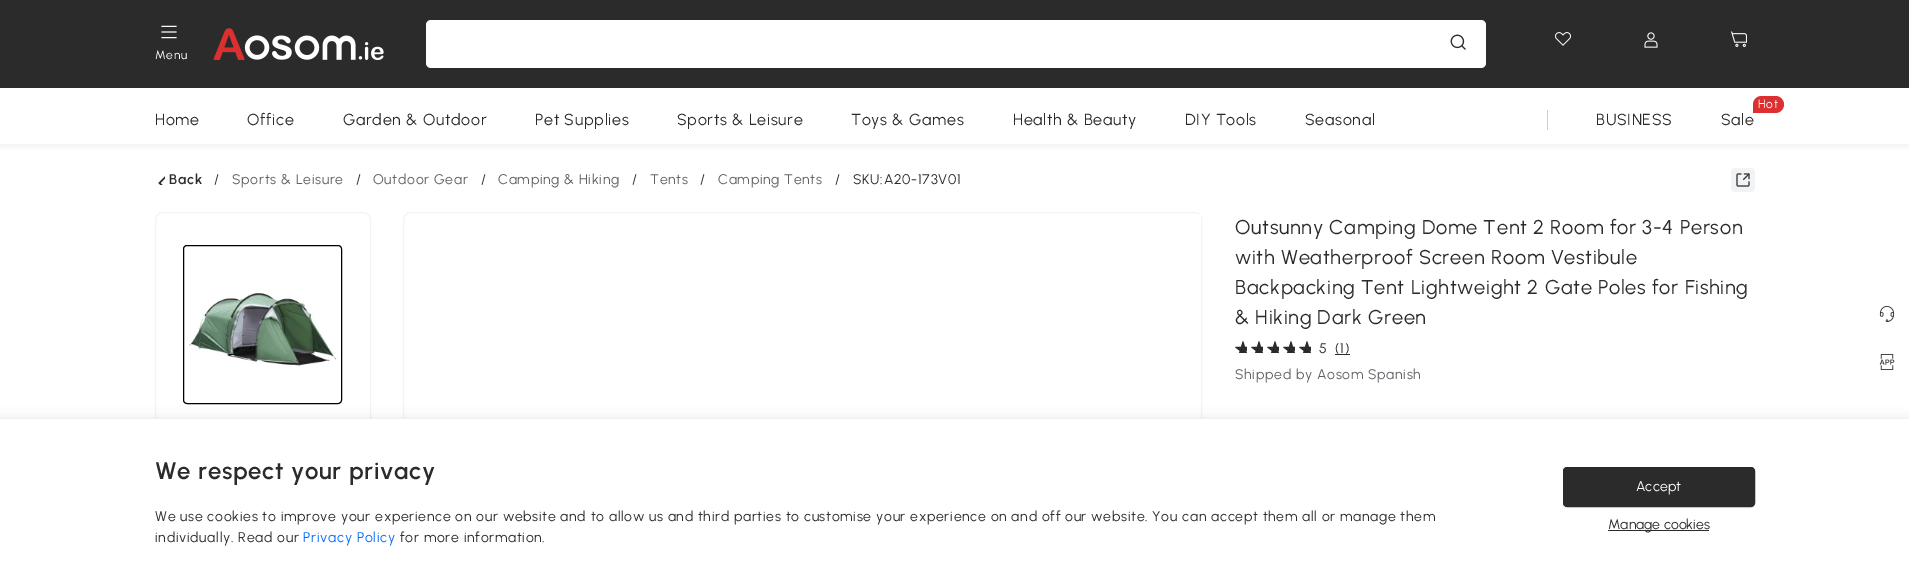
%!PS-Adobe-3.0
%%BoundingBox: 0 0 1909 584
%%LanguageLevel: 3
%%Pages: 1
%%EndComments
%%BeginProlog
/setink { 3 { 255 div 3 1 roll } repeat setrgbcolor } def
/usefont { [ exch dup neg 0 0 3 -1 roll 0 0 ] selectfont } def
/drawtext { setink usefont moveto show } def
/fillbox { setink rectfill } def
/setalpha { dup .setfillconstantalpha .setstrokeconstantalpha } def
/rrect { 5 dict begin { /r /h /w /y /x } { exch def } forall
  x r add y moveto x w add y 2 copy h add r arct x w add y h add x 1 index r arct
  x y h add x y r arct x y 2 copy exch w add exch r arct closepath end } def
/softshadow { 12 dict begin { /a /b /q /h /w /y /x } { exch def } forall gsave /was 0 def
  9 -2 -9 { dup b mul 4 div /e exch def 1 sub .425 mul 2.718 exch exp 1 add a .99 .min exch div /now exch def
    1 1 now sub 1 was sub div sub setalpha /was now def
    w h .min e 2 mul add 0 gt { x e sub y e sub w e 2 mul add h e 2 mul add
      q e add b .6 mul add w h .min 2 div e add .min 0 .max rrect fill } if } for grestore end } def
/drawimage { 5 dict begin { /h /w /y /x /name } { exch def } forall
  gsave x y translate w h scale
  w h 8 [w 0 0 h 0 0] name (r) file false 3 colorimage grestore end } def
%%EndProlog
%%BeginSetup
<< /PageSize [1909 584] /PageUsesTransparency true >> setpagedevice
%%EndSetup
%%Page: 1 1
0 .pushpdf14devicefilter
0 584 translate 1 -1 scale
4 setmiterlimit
0 0 1909 584 255 255 255 fillbox
gsave
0 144 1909 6 rectclip
142 146 153 setink
0 4 1909 144 0 2 0.1 softshadow
grestore
0 0 1909 88 43 43 43 fillbox
255 255 255 setink
426 20 1060 48 5 rrect fill
(assets/img1.rgb) 1450 34 16 16 drawimage
(assets/img2.rgb) 1555 32 16 14 drawimage
(assets/img3.rgb) 1644 32 14 16 drawimage
(assets/img4.rgb) 1731 31 16 16 drawimage
(assets/img5.rgb) 161 25 16 14 drawimage
/Urbanist-Regular 12 usefont
155 59 moveto 0.7 0 (Menu) ashow
(assets/img6.rgb) 213 28 171 32 drawimage
/Urbanist-Regular 16 usefont
43 43 43 setink
155 125 moveto 0.7 0 (Home) ashow
247 125 moveto 0.7 0 (Office) ashow
343 125 moveto 0.7 0 (Garden & Outdoor) ashow
535 125 moveto 0.7 0 (Pet Supplies) ashow
677 125 moveto 0.7 0 (Sports & Leisure) ashow
851 125 moveto 0.7 0 (Toys & Games) ashow
1013 125 moveto 0.7 0 (Health & Beauty) ashow
1185 125 moveto 0.7 0 (DIY Tools) ashow
1305 125 moveto 0.7 0 (Seasonal) ashow
1547 110 1 20 201 205 212 fillbox
43 43 43 setink
1596 125 moveto 0.7 0 (BUSINESS) ashow
220 47 47 setink
1761.5 96 moveto 1775.5 96 lineto 1780 96 1784 100 1784 104.5 curveto 1784 109 1780 113 1775.5 113 curveto 1753 113 lineto 1753 104.5 lineto 1753 100 1757 96 1761.5 96 curveto closepath fill
/Urbanist-Regular 12 usefont
255 255 255 setink
1758 108 moveto 0.7 0 (Hot) ashow
/Urbanist-Regular 16 usefont
43 43 43 setink
1721 125 moveto 0.7 0 (Sale) ashow
(assets/img7.rgb) 158 176 7 9 drawimage
/Urbanist-SemiBold 14 usefont
169 184 moveto 0.7 0 (Back) ashow
/Urbanist-Regular 14 usefont
214 184 moveto 0.7 0 (/) ashow
95 97 102 setink
232 184 moveto 0.7 0 (Sports & Leisure) ashow
43 43 43 setink
356 184 moveto 0.7 0 (/) ashow
95 97 102 setink
373 184 moveto 0.7 0 (Outdoor Gear) ashow
43 43 43 setink
481 184 moveto 0.7 0 (/) ashow
95 97 102 setink
498 184 moveto 0.7 0 (Camping & Hiking) ashow
43 43 43 setink
632 184 moveto 0.7 0 (/) ashow
95 97 102 setink
650 184 moveto 0.7 0 (Tents) ashow
43 43 43 setink
700 184 moveto 0.7 0 (/) ashow
95 97 102 setink
718 184 moveto 0.7 0 (Camping Tents) ashow
43 43 43 setink
835 184 moveto 0.7 0 (/) ashow
853 184 moveto 0.7 0 (SKU:A20-173V01) ashow
242 243 245 setink
1731 168 24 24 4 rrect fill
(assets/img8.rgb) 1736 173 14 14 drawimage
155.5 212.5 215 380 7.5 rrect stroke
0 0 0 setink
183.5 245.5 158 158 3.5 rrect stroke
(assets/img9.rgb) 189 293 148 73 drawimage
242 243 245 setink
403.5 212.5 798 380 7.5 rrect stroke
(assets/img10.rgb) 482 214 719 205 drawimage
/Urbanist-Regular 20 usefont
43 43 43 setink
1235 234 moveto 0.7 0 (Outsunny Camping Dome Tent 2 Room for 3-4 Person) ashow
1235 264 moveto 0.7 0 (with Weatherproof Screen Room Vestibule) ashow
1235 294 moveto 0.7 0 (Backpacking Tent Lightweight 2 Gate Poles for Fishing) ashow
1235 324 moveto 0.7 0 (& Hiking Dark Green) ashow
(assets/img11.rgb) 1235 341 12 12 drawimage
(assets/img11.rgb) 1251 341 12 12 drawimage
(assets/img11.rgb) 1267 341 12 12 drawimage
(assets/img11.rgb) 1283 341 12 12 drawimage
(assets/img11.rgb) 1299 341 12 12 drawimage
/Urbanist-Regular 14 usefont
1319 353 moveto 0.7 0 (5) ashow
1335 353 moveto 0.7 0 (\(1\)) ashow
1335 354 15 1 43 43 43 fillbox
95 97 102 setink
1235 379 moveto 0.7 0 (Shipped by Aosom Spanish) ashow
(assets/img12.rgb) 1879 306 16 16 drawimage
(assets/img13.rgb) 1879 354 16 16 drawimage
0 0 0 setink
0 419 1909 165 0 6 0.1 softshadow
0 419 1909 165 255 255 255 fillbox
/Urbanist-SemiBold 24 usefont
43 43 43 setink
155 479 moveto 0.7 0 (We respect your privacy) ashow
/Urbanist-Regular 14 usefont
155 521 moveto 0.7 0 (We use cookies to improve your experience on our website and to allow us and third parties to customise your experience on and off our website. You can accept them all or manage them) ashow
155 542 moveto 0.7 0 (individually. Read our) ashow
6 109 255 setink
303 542 moveto 0.7 0 (Privacy Policy) ashow
43 43 43 setink
400 542 moveto 0.7 0 (for more information.) ashow
251 251 251 setink
1563 503 moveto 1563 505 lineto 1563 507 1565 509 1567 509 curveto 1751 509 lineto 1753 509 1755 507 1755 505 curveto 1755 503 lineto 1755 505 1753 507 1751 507 curveto 1567 507 lineto 1565 507 1563 505 1563 503 curveto closepath fill
43 43 43 setink
1563.5 467.5 191 39 3.5 rrect gsave fill grestore
stroke
(Accept) 1636 491 /Urbanist-Regular 14 255 255 255 drawtext
1608 530 101 1 43 43 43 fillbox
(Manage cookies) 1608 529 /Urbanist-Regular 14 43 43 43 drawtext
.poppdf14devicefilter showpage
%%EOF
